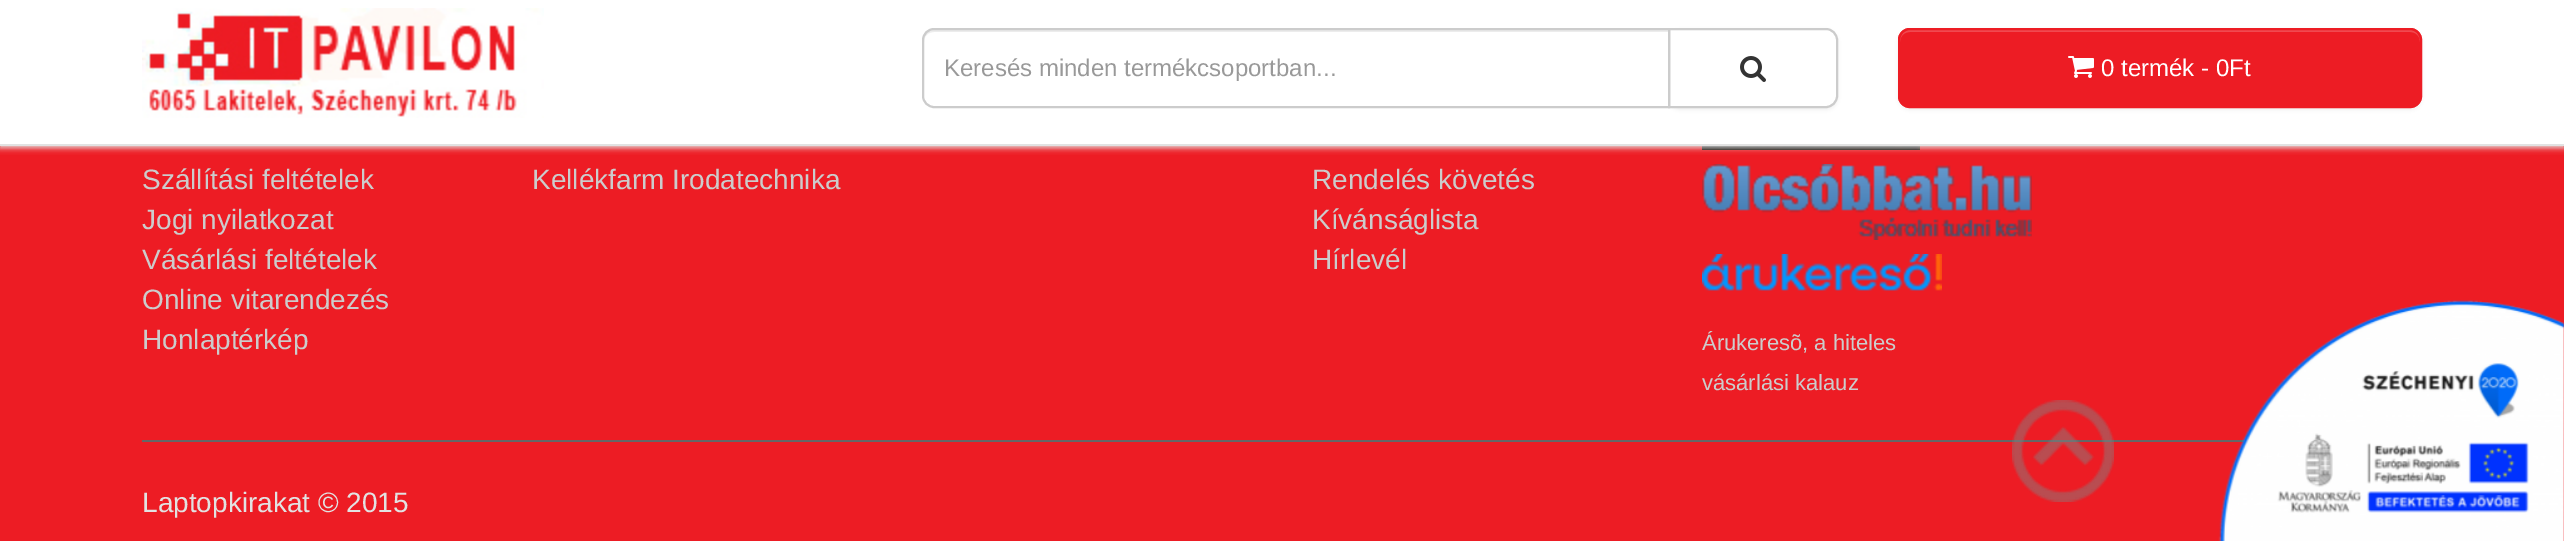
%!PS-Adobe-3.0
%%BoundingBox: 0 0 2564 541
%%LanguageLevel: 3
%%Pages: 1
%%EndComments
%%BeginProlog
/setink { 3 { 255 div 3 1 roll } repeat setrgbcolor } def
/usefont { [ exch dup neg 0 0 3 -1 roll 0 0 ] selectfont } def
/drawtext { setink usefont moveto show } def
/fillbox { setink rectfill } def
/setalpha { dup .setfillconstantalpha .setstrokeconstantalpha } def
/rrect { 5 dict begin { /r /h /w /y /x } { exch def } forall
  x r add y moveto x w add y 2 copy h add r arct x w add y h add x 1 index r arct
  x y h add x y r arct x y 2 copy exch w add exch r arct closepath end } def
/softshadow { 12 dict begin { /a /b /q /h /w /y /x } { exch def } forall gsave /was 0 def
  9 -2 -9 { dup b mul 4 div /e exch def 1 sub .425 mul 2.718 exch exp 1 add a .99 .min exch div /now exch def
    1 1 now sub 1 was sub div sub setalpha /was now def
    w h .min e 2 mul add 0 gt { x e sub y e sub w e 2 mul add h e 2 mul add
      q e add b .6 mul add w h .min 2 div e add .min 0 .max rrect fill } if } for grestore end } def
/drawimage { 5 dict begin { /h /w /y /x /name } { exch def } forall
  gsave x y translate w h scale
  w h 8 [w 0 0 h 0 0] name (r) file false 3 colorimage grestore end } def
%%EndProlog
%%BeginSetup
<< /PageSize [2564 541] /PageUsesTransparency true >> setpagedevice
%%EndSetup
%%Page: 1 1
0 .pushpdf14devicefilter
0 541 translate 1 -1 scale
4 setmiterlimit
0 0 2564 541 237 28 36 fillbox
(assets/img4.rgb) 1702 146 218 4 drawimage
227 227 227 setink
0 2 2564 146 0 3 1 softshadow
0 0 2564 144 255 255 255 fillbox
0 144 2564 2 226 226 226 fillbox
(assets/img1.rgb) 142 8 402 110 drawimage
0 0 0 setink
1668 30 170 80 12 2 0.05 softshadow
255 255 255 setink
1669 29 moveto 1826 29 lineto 1832 29 1837 34 1837 40 curveto 1837 96 lineto 1837 102 1832 107 1826 107 curveto 1669 107 lineto closepath gsave fill grestore
204 204 204 setink
2 setlinewidth
stroke
255 255 255 setink
934 28 moveto 1670 28 lineto 1670 108 lineto 934 108 lineto 927.5 108 922 102.5 922 96 curveto 922 40 lineto 922 33.5 927.5 28 934 28 curveto closepath fill
236 236 236 setink
934 32 moveto 1668 32 lineto 1668 30 lineto 934 30 lineto 928 30 924 34 924 40 curveto 924 42 lineto 924 36 928 32 934 32 curveto closepath fill
204 204 204 setink
934 29 moveto 1669 29 lineto 1669 107 lineto 934 107 lineto 928 107 923 102 923 96 curveto 923 40 lineto 923 34 928 29 934 29 curveto closepath stroke
(Keresés minden termékcsoportban...) 944 76 /LiberationSans-Regular 24 153 153 153 drawtext
(assets/img2.rgb) 1740 56 26 26 drawimage
0 0 0 setink
1898 30 524 80 12 2 0.05 softshadow
237 28 36 setink
1898 28 524 80 12 rrect fill
241 73 80 setink
1910 32 moveto 2410 32 lineto 2416 32 2420 36 2420 42 curveto 2420 36 2417 30 2410 30 curveto 1910 30 lineto 1903 30 1900 36 1900 42 curveto 1900 36 1904 32 1910 32 curveto closepath fill
237 28 36 setink
1899 29 522 78 11 rrect stroke
(assets/img3.rgb) 2068 56 26 22 drawimage
(0 termék - 0Ft) 2101 76 /LiberationSans-Regular 24 255 255 255 drawtext
(Szállítási feltételek) 142 189 /LiberationSans-Regular 28 204 204 204 drawtext
(Jogi nyilatkozat) 142 229 /LiberationSans-Regular 28 204 204 204 drawtext
(Vásárlási feltételek) 142 269 /LiberationSans-Regular 28 204 204 204 drawtext
(Online vitarendezés) 142 309 /LiberationSans-Regular 28 204 204 204 drawtext
(Honlaptérkép) 142 349 /LiberationSans-Regular 28 204 204 204 drawtext
(Kellékfarm Irodatechnika) 532 189 /LiberationSans-Regular 28 204 204 204 drawtext
(Rendelés követés) 1312 189 /LiberationSans-Regular 28 204 204 204 drawtext
(Kívánságlista) 1312 229 /LiberationSans-Regular 28 204 204 204 drawtext
(Hírlevél) 1312 269 /LiberationSans-Regular 28 204 204 204 drawtext
(assets/img5.rgb) 1702 164 330 76 drawimage
(assets/img6.rgb) 1702 254 240 37 drawimage
(Árukeresõ, a hiteles) 1702 350 /LiberationSans-Regular 22 204 204 204 drawtext
(vásárlási kalauz) 1702 390 /LiberationSans-Regular 22 204 204 204 drawtext
142 440 2104 2 102 102 102 fillbox
(Laptopkirakat © 2015) 142 512 /LiberationSans-Regular 28 226 226 226 drawtext
(assets/img7.rgb) 2012 400 102 102 drawimage
(assets/img8.rgb) 2218 300 346 241 drawimage
.poppdf14devicefilter showpage
%%EOF
